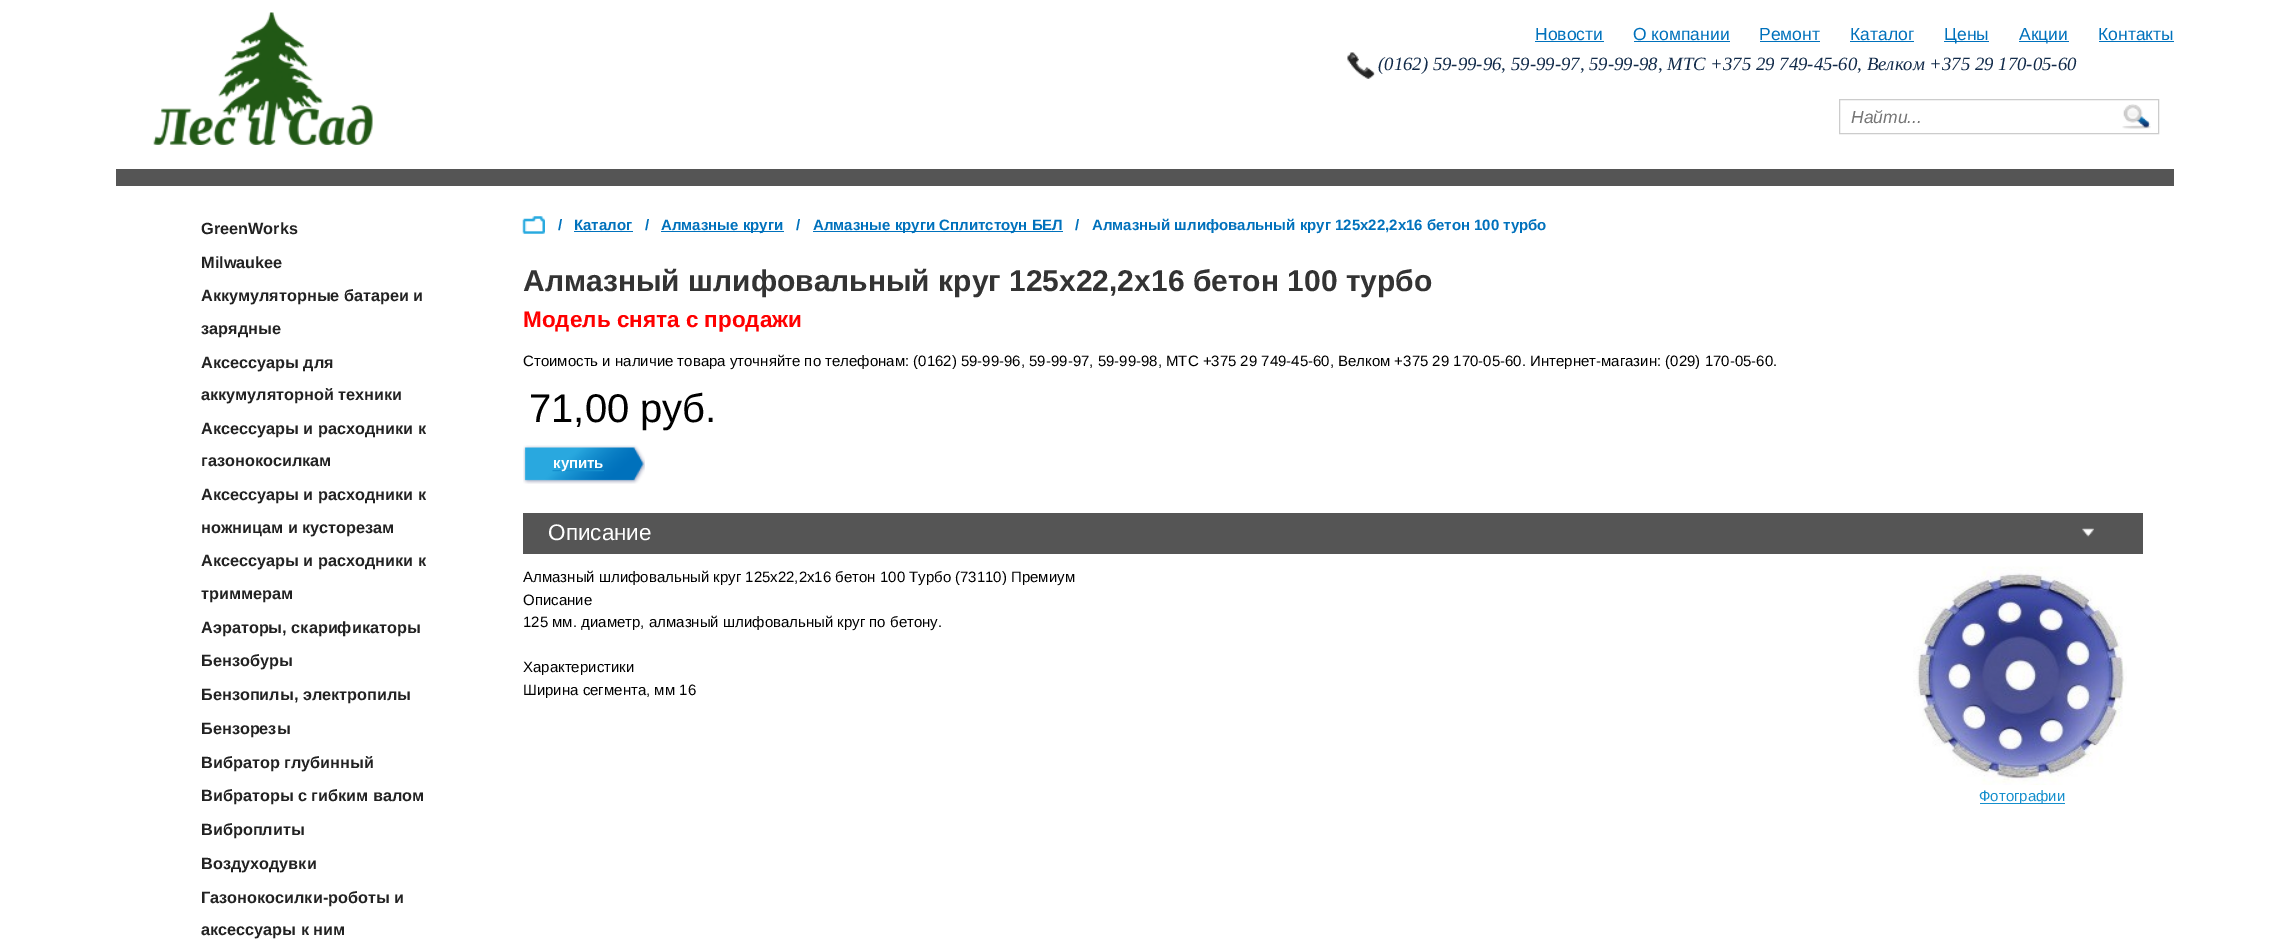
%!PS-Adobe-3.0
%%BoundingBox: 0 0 2289 947
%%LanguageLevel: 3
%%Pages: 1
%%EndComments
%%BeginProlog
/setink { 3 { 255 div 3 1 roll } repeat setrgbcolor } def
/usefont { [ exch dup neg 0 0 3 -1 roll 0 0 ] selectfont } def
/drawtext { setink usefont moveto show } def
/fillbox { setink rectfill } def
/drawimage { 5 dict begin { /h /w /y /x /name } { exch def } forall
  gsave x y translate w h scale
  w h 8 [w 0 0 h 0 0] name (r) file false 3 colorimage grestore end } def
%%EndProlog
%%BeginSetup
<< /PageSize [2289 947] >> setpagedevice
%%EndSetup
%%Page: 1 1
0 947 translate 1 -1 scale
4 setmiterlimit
0 0 2289 947 255 255 255 fillbox
(Новости) 1535 40 /LiberationSans-Regular 17.5 0 113 188 drawtext
1535 41 69 1 0 113 188 fillbox
(О компании) 1633 40 /LiberationSans-Regular 17.5 0 113 188 drawtext
1634 41 96 1 0 113 188 fillbox
(Ремонт) 1759 40 /LiberationSans-Regular 17.5 0 113 188 drawtext
1760 41 60 1 0 113 188 fillbox
(Каталог) 1850 40 /LiberationSans-Regular 17.5 0 113 188 drawtext
1850 41 64 1 0 113 188 fillbox
1944 41 45 1 0 113 188 fillbox
(Цены) 1944 40 /LiberationSans-Regular 17.5 0 113 188 drawtext
2019 41 50 1 0 113 188 fillbox
(Акции) 2019 40 /LiberationSans-Regular 17.5 0 113 188 drawtext
(Контакты) 2098 40 /LiberationSans-Regular 17.5 0 113 188 drawtext
2099 41 75 1 0 113 188 fillbox
(assets/img1.rgb) 153 12 220 133 drawimage
(assets/img2.rgb) 1347 52 28 27 drawimage
(\(0162\) 59-99-96, 59-99-97, 59-99-98, МТС +375 29 749-45-60, Велком +375 29 170-05-60) 1378 70 /LiberationSerif-Italic 18.75 18 43 74 drawtext
204 204 204 setink
1839.5 99.5 319 34 rectstroke
(Найти...) 1851 123 /LiberationSans-Italic 17.5 117 117 117 drawtext
(assets/img3.rgb) 2122 104 29 25 drawimage
116 169 2058 17 85 85 85 fillbox
(GreenWorks) 201 234 /LiberationSans-Bold 16.25 34 34 34 drawtext
(Milwaukee) 201 268 /LiberationSans-Bold 16.25 34 34 34 drawtext
(Аккумуляторные батареи и) 201 301 /LiberationSans-Bold 16.25 34 34 34 drawtext
(зарядные) 201 334 /LiberationSans-Bold 16.25 34 34 34 drawtext
(Аксессуары для) 201 368 /LiberationSans-Bold 16.25 34 34 34 drawtext
(аккумуляторной техники) 201 400 /LiberationSans-Bold 16.25 34 34 34 drawtext
(Аксессуары и расходники к) 201 434 /LiberationSans-Bold 16.25 34 34 34 drawtext
(газонокосилкам) 201 466 /LiberationSans-Bold 16.25 34 34 34 drawtext
(Аксессуары и расходники к) 201 500 /LiberationSans-Bold 16.25 34 34 34 drawtext
(ножницам и кусторезам) 201 533 /LiberationSans-Bold 16.25 34 34 34 drawtext
(Аксессуары и расходники к) 201 566 /LiberationSans-Bold 16.25 34 34 34 drawtext
(триммерам) 201 599 /LiberationSans-Bold 16.25 34 34 34 drawtext
(Аэраторы, скарификаторы) 201 633 /LiberationSans-Bold 16.25 34 34 34 drawtext
(Бензобуры) 201 666 /LiberationSans-Bold 16.25 34 34 34 drawtext
(Бензопилы, электропилы) 201 700 /LiberationSans-Bold 16.25 34 34 34 drawtext
(Бензорезы) 201 734 /LiberationSans-Bold 16.25 34 34 34 drawtext
(Вибратор глубинный) 201 768 /LiberationSans-Bold 16.25 34 34 34 drawtext
(Вибраторы с гибким валом) 201 801 /LiberationSans-Bold 16.25 34 34 34 drawtext
(Виброплиты) 201 835 /LiberationSans-Bold 16.25 34 34 34 drawtext
(Воздуходувки) 201 869 /LiberationSans-Bold 16.25 34 34 34 drawtext
(Газонокосилки-роботы и) 201 903 /LiberationSans-Bold 16.25 34 34 34 drawtext
(аксессуары к ним) 201 935 /LiberationSans-Bold 16.25 34 34 34 drawtext
(assets/img4.rgb) 522 216 23 18 drawimage
(/) 558 230 /LiberationSans-Bold 15 0 113 188 drawtext
(Каталог) 574 230 /LiberationSans-Bold 15 0 113 188 drawtext
574 231 59 1 0 113 188 fillbox
(/) 645 230 /LiberationSans-Bold 15 0 113 188 drawtext
661 231 123 1 0 113 188 fillbox
(Алмазные круги) 661 230 /LiberationSans-Bold 15 0 113 188 drawtext
(/) 796 230 /LiberationSans-Bold 15 0 113 188 drawtext
813 231 250 1 0 113 188 fillbox
(Алмазные круги Сплитстоун БЕЛ) 813 230 /LiberationSans-Bold 15 0 113 188 drawtext
(/) 1075 230 /LiberationSans-Bold 15 0 113 188 drawtext
(Алмазный шлифовальный круг 125х22,2х16 бетон 100 турбо) 1092 230 /LiberationSans-Bold 15 0 113 188 drawtext
(Алмазный шлифовальный круг 125х22,2х16 бетон 100 турбо) 523 291 /LiberationSans-Bold 30 51 51 51 drawtext
(Модель снята с продажи) 523 327 /LiberationSans-Bold 22.5 255 0 0 drawtext
(Стоимость и наличие товара уточняйте по телефонам: \(0162\) 59-99-96, 59-99-97, 59-99-98, МТС +375 29 749-45-60, Велком +375 29 170-05-60. Интернет-магазин: \(029\) 170-05-60.) 523 366 /LiberationSans-Regular 15 0 0 0 drawtext
(71,00 руб.) 529 422 /LiberationSans-Regular 40 0 0 0 drawtext
(assets/img5.rgb) 523 445 122 39 drawimage
553 470 51 1 21 143 205 fillbox
(купить) 553 468 /LiberationSans-Bold 15 255 255 255 drawtext
523 513 1620 41 85 85 85 fillbox
(assets/img6.rgb) 2082 528 12 9 drawimage
(Описание) 548 540 /LiberationSans-Regular 22.5 255 255 255 drawtext
(Алмазный шлифовальный круг 125х22,2х16 бетон 100 Турбо \(73110\) Премиум) 523 582 /LiberationSans-Regular 15 0 0 0 drawtext
(Описание) 523 605 /LiberationSans-Regular 15 0 0 0 drawtext
(125 мм. диаметр, алмазный шлифовальный круг по бетону.) 523 627 /LiberationSans-Regular 15 0 0 0 drawtext
(Характеристики) 523 672 /LiberationSans-Regular 15 0 0 0 drawtext
(Ширина сегмента, мм 16) 523 695 /LiberationSans-Regular 15 0 0 0 drawtext
(assets/img7.rgb) 1913 566 214 219 drawimage
1980 803 85 1 21 143 205 fillbox
(Фотографии) 1979 801 /LiberationSans-Regular 15 21 143 205 drawtext
showpage
%%EOF
